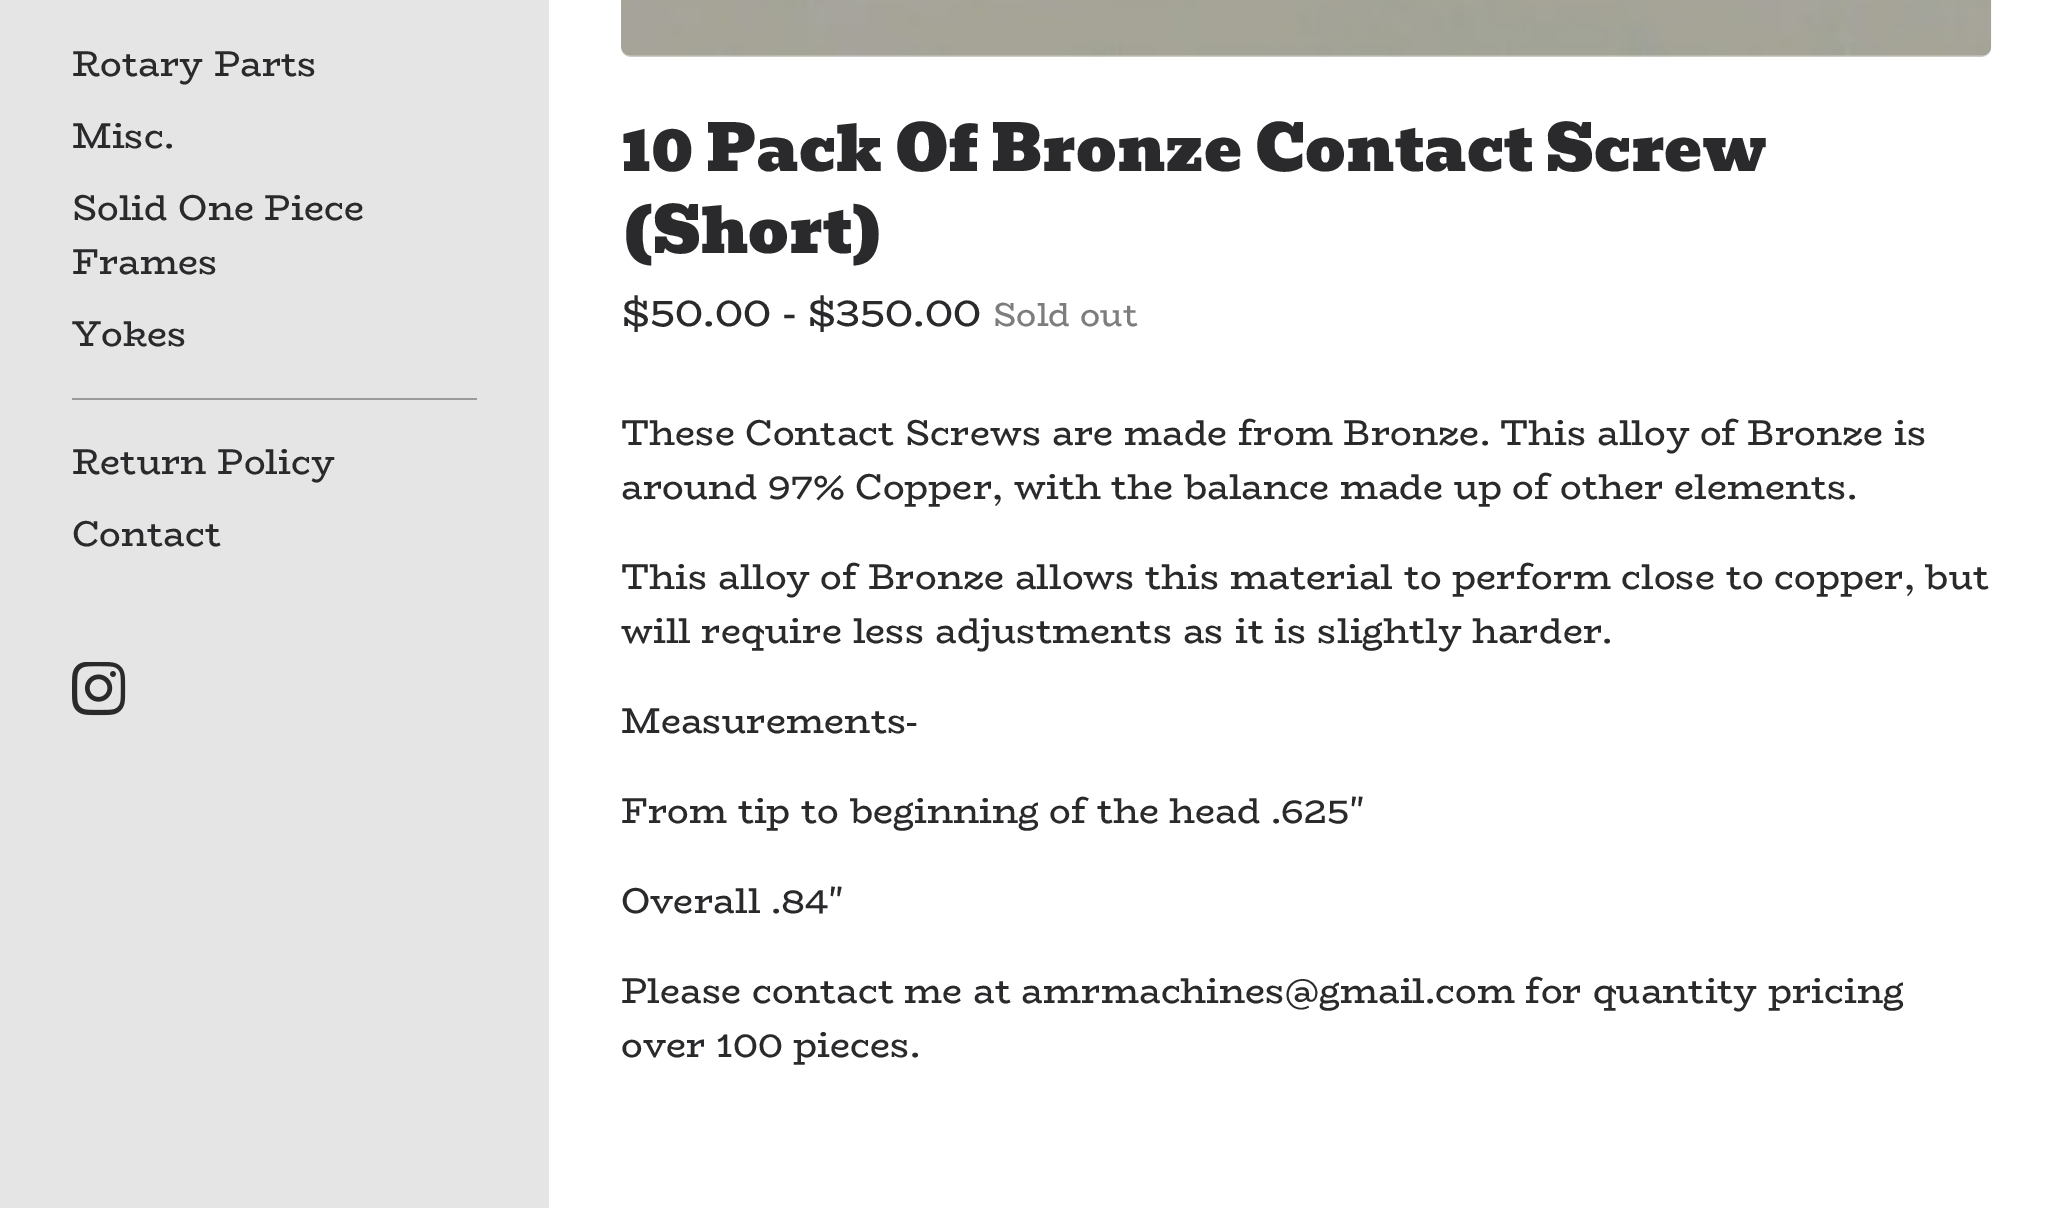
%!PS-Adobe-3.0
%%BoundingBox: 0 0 2062 1208
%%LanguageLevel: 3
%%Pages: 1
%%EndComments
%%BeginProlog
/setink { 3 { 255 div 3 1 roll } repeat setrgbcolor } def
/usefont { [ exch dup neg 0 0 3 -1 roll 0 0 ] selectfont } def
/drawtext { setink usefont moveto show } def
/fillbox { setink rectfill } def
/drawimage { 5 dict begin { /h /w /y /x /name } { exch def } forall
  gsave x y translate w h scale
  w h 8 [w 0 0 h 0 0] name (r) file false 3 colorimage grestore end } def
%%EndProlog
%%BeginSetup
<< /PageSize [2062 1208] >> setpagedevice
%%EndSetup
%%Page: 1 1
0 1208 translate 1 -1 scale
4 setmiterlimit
0 0 2062 1208 255 255 255 fillbox
0 0 549 1208 229 229 230 fillbox
(Rotary Parts) 72 76 /BioRhyme-Regular 36 42 42 44 drawtext
(Misc.) 72 148 /BioRhyme-Regular 36 42 42 44 drawtext
(Solid One Piece) 72 220 /BioRhyme-Regular 36 42 42 44 drawtext
(Frames) 72 274 /BioRhyme-Regular 36 42 42 44 drawtext
(Yokes) 72 346 /BioRhyme-Regular 36 42 42 44 drawtext
72 398 405 2 154 154 156 fillbox
(Return Policy) 72 474 /BioRhyme-Regular 36 42 42 44 drawtext
(Contact) 72 546 /BioRhyme-Regular 36 42 42 44 drawtext
(assets/img1.rgb) 72 662 54 54 drawimage
(assets/img2.rgb) 621 0 1371 57 drawimage
(10 Pack Of Bronze Contact Screw) 621 171 /Bevan-Regular 63 42 42 44 drawtext
(\(Short\)) 621 253 /Bevan-Regular 63 42 42 44 drawtext
($50.00 - $350.00) 621 326 /BioRhyme-Regular 40.5 42 42 44 drawtext
(Sold out) 993 326 /BioRhyme-Regular 33.5 126 125 125 drawtext
(These Contact Screws are made from Bronze. This alloy of Bronze is) 621 445 /BioRhyme-Regular 36 42 42 44 drawtext
(around 97% Copper, with the balance made up of other elements.) 621 499 /BioRhyme-Regular 36 42 42 44 drawtext
(This alloy of Bronze allows this material to perform close to copper, but) 621 589 /BioRhyme-Regular 36 42 42 44 drawtext
(will require less adjustments as it is slightly harder.) 621 643 /BioRhyme-Regular 36 42 42 44 drawtext
(Measurements-) 621 733 /BioRhyme-Regular 36 42 42 44 drawtext
(From tip to beginning of the head .625") 621 823 /BioRhyme-Regular 36 42 42 44 drawtext
(Overall .84") 621 913 /BioRhyme-Regular 36 42 42 44 drawtext
(Please contact me at amrmachines@gmail.com for quantity pricing) 621 1003 /BioRhyme-Regular 36 42 42 44 drawtext
(over 100 pieces.) 621 1057 /BioRhyme-Regular 36 42 42 44 drawtext
showpage
%%EOF
